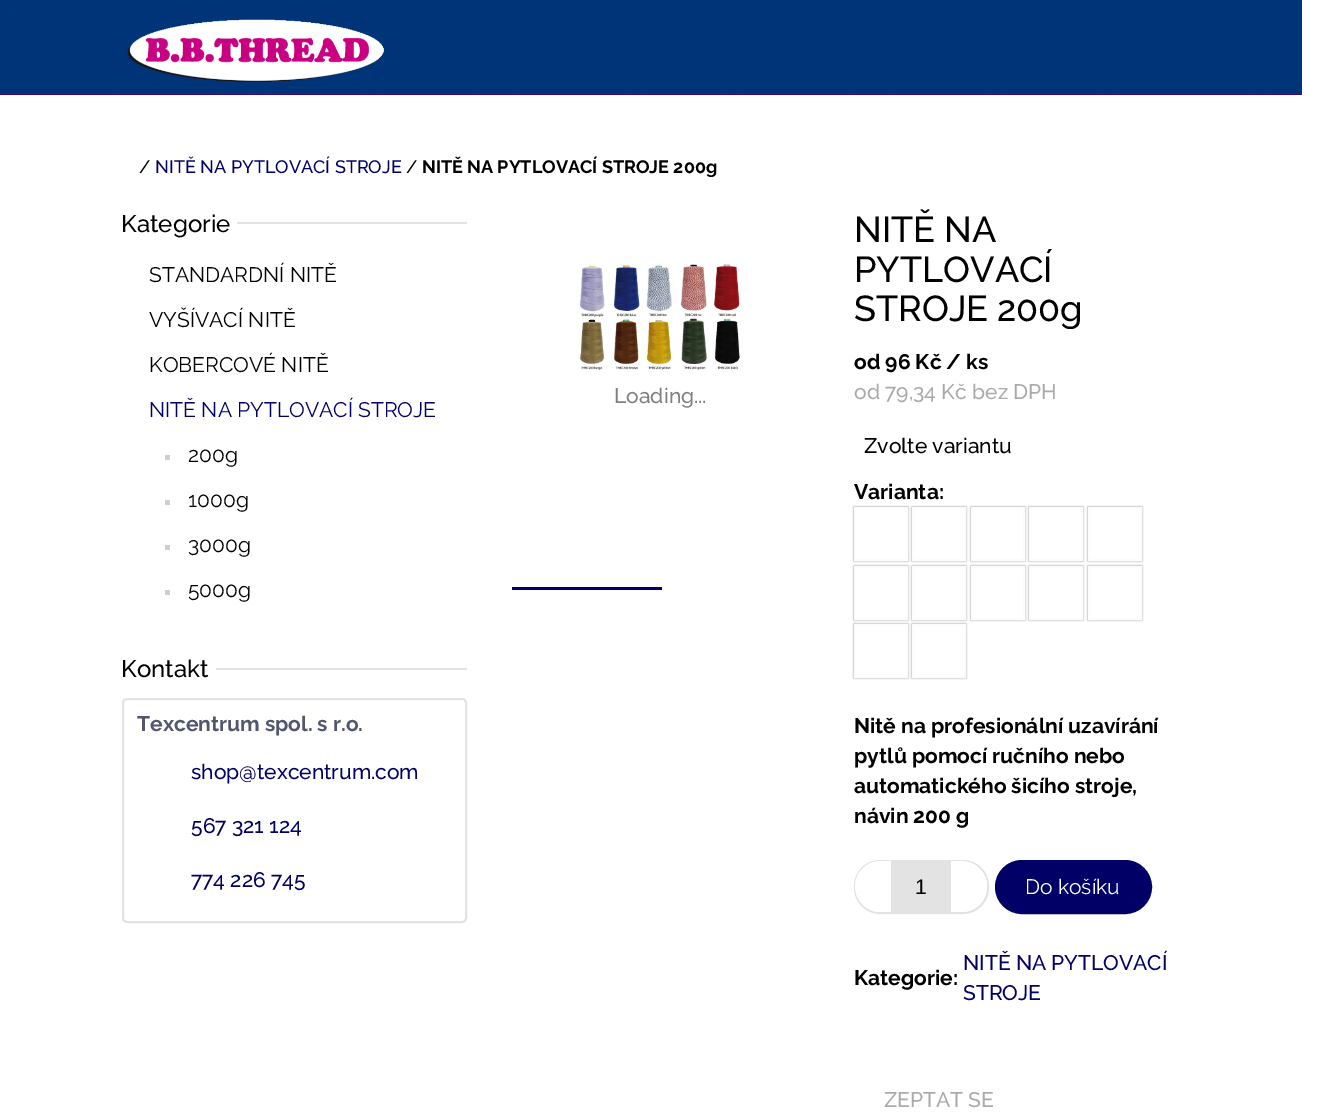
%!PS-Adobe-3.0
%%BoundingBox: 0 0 1324 1116
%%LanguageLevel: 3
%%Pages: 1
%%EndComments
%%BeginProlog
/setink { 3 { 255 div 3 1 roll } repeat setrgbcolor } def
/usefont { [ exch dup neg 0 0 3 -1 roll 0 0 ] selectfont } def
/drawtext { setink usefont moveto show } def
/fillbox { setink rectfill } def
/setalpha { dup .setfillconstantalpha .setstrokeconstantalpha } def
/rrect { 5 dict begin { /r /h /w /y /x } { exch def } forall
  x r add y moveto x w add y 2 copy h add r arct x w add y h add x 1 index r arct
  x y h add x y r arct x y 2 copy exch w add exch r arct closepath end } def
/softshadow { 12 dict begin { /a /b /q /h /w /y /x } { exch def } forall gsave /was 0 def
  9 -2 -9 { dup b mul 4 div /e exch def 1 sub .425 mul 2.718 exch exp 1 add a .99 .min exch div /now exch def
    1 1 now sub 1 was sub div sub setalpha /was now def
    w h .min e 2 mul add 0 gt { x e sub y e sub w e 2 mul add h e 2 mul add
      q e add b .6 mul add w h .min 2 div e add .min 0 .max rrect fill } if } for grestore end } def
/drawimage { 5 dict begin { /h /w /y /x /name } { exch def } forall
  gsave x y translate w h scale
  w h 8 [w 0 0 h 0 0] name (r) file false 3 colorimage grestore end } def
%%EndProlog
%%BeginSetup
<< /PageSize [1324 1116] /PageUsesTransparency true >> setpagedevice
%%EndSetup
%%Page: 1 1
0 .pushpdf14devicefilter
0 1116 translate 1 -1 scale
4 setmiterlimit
0 0 1324 1116 255 255 255 fillbox
0 94 1302 1 1 0 102 fillbox
(assets/img1.rgb) 0 0 1302 95 drawimage
(assets/img2.rgb) 127 19 257 63 drawimage
(/) 139 173 /Raleway-Medium 18 0 0 0 drawtext
(NITĚ NA PYTLOVACÍ STROJE) 155 173 /Raleway-Medium 18 1 0 102 drawtext
(/) 406 173 /Raleway-Medium 18 0 0 0 drawtext
(NITĚ NA PYTLOVACÍ STROJE 200g) 422 173 /Raleway-Bold 18 0 0 0 drawtext
(Kategorie) 121 232 /Raleway-Medium 24 0 0 0 drawtext
237 222 230 2 227 227 227 fillbox
(STANDARDNÍ NITĚ) 149 282 /Raleway-Regular 21 0 0 0 drawtext
(VYŠÍVACÍ NITĚ) 149 327 /Raleway-Regular 21 0 0 0 drawtext
(KOBERCOVÉ NITĚ) 149 372 /Raleway-Regular 21 0 0 0 drawtext
(NITĚ NA PYTLOVACÍ STROJE) 149 417 /Raleway-Regular 21 1 0 102 drawtext
165 455 5 5 207 207 207 fillbox
(200g) 188 462 /Raleway-Regular 21 0 0 0 drawtext
165 500 5 5 207 207 207 fillbox
(1000g) 188 507 /Raleway-Regular 21 0 0 0 drawtext
165 545 5 5 207 207 207 fillbox
(3000g) 188 552 /Raleway-Regular 21 0 0 0 drawtext
165 590 5 5 207 207 207 fillbox
(5000g) 188 597 /Raleway-Regular 21 0 0 0 drawtext
(Kontakt) 121 677 /Raleway-Medium 24 0 0 0 drawtext
216 668 251 2 227 227 227 fillbox
2 setlinewidth
123 699 343 223 4 rrect stroke
(Texcentrum spol. s r.o.) 137 731 /Raleway-Bold 21 82 87 111 drawtext
(shop@texcentrum.com) 191 779 /Raleway-Medium 21 1 0 102 drawtext
(567 321 124) 191 833 /Raleway-Medium 21 1 0 102 drawtext
(774 226 745) 191 887 /Raleway-Medium 21 1 0 102 drawtext
(assets/img3.rgb) 578 263 162 107 drawimage
(Loading...) 614 403 /Raleway-Medium 21 128 128 128 drawtext
512 587 150 3 1 0 102 fillbox
(NITĚ NA) 854 242 /Raleway-Medium 36 0 0 0 drawtext
(PYTLOVACÍ) 854 282 /Raleway-Medium 36 0 0 0 drawtext
(STROJE 200g) 854 321 /Raleway-Medium 36 0 0 0 drawtext
(od 96 Kč / ks) 854 369 /Raleway-Bold 21 0 0 0 drawtext
(od 79,34 Kč bez DPH) 854 399 /Raleway-Medium 21 170 170 170 drawtext
(Zvolte variantu) 864 453 /Raleway-Medium 21 0 0 0 drawtext
(Varianta:) 854 499 /Raleway-Bold 21 0 0 0 drawtext
gsave
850 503 moveto 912 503 lineto 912 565 lineto 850 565 lineto closepath 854 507 moveto 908 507 lineto 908 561 lineto 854 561 lineto closepath eoclip newpath
854 507 54 54 0 1 0.5 softshadow
grestore
252 252 252 setink
855 508 52 52 rectstroke
gsave
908 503 moveto 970 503 lineto 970 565 lineto 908 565 lineto closepath 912 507 moveto 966 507 lineto 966 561 lineto 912 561 lineto closepath eoclip newpath
0 0 0 setink
912 507 54 54 0 1 0.5 softshadow
grestore
913 508 52 52 rectstroke
gsave
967 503 moveto 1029 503 lineto 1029 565 lineto 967 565 lineto closepath 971 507 moveto 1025 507 lineto 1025 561 lineto 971 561 lineto closepath eoclip newpath
0 0 0 setink
971 507 54 54 0 1 0.5 softshadow
grestore
972 508 52 52 rectstroke
gsave
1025 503 moveto 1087 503 lineto 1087 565 lineto 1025 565 lineto closepath 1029 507 moveto 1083 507 lineto 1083 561 lineto 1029 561 lineto closepath eoclip newpath
0 0 0 setink
1029 507 54 54 0 1 0.5 softshadow
grestore
1030 508 52 52 rectstroke
gsave
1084 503 moveto 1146 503 lineto 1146 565 lineto 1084 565 lineto closepath 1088 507 moveto 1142 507 lineto 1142 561 lineto 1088 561 lineto closepath eoclip newpath
0 0 0 setink
1088 507 54 54 0 1 0.5 softshadow
grestore
1089 508 52 52 rectstroke
gsave
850 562 moveto 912 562 lineto 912 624 lineto 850 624 lineto closepath 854 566 moveto 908 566 lineto 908 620 lineto 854 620 lineto closepath eoclip newpath
0 0 0 setink
854 566 54 54 0 1 0.5 softshadow
grestore
855 567 52 52 rectstroke
gsave
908 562 moveto 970 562 lineto 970 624 lineto 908 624 lineto closepath 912 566 moveto 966 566 lineto 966 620 lineto 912 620 lineto closepath eoclip newpath
0 0 0 setink
912 566 54 54 0 1 0.5 softshadow
grestore
913 567 52 52 rectstroke
gsave
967 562 moveto 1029 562 lineto 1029 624 lineto 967 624 lineto closepath 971 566 moveto 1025 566 lineto 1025 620 lineto 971 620 lineto closepath eoclip newpath
0 0 0 setink
971 566 54 54 0 1 0.5 softshadow
grestore
972 567 52 52 rectstroke
gsave
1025 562 moveto 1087 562 lineto 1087 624 lineto 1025 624 lineto closepath 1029 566 moveto 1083 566 lineto 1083 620 lineto 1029 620 lineto closepath eoclip newpath
0 0 0 setink
1029 566 54 54 0 1 0.5 softshadow
grestore
1030 567 52 52 rectstroke
gsave
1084 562 moveto 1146 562 lineto 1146 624 lineto 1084 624 lineto closepath 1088 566 moveto 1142 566 lineto 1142 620 lineto 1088 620 lineto closepath eoclip newpath
0 0 0 setink
1088 566 54 54 0 1 0.5 softshadow
grestore
1089 567 52 52 rectstroke
gsave
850 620 moveto 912 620 lineto 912 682 lineto 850 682 lineto closepath 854 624 moveto 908 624 lineto 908 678 lineto 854 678 lineto closepath eoclip newpath
0 0 0 setink
854 624 54 54 0 1 0.5 softshadow
grestore
855 625 52 52 rectstroke
gsave
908 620 moveto 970 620 lineto 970 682 lineto 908 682 lineto closepath 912 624 moveto 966 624 lineto 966 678 lineto 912 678 lineto closepath eoclip newpath
0 0 0 setink
912 624 54 54 0 1 0.5 softshadow
grestore
913 625 52 52 rectstroke
(Nitě na profesionální uzavírání) 854 733 /Raleway-Bold 21 0 0 0 drawtext
(pytlů pomocí ručního nebo) 854 763 /Raleway-Bold 21 0 0 0 drawtext
(automatického šicího stroje,) 854 793 /Raleway-Bold 21 0 0 0 drawtext
(návin 200 g) 854 823 /Raleway-Bold 21 0 0 0 drawtext
227 227 227 setink
855 861 133 52 25 rrect stroke
255 255 255 setink
880.5 861 moveto 891 861 lineto 891 912 lineto 880.5 912 lineto 866.5 912 855 900.5 855 886.5 curveto 855 872.5 866.5 861 880.5 861 curveto closepath fill
891 862 60 50 227 227 227 fillbox
(1) 915 894 /LiberationSans-Regular 21 0 0 0 drawtext
255 255 255 setink
951 861 moveto 961.5 861 lineto 975.5 861 987 872.5 987 886.5 curveto 987 900.5 975.5 912 961.5 912 curveto 951 912 lineto closepath fill
1 0 102 setink
996 861 155 52 26 rrect gsave fill grestore
stroke
(Do košíku) 1025 894 /Raleway-Regular 21 255 255 255 drawtext
(Kategorie:) 854 985 /Raleway-Bold 21 0 0 0 drawtext
(NITĚ NA PYTLOVACÍ) 963 970 /Raleway-Medium 21 1 0 102 drawtext
(STROJE) 963 1000 /Raleway-Medium 21 1 0 102 drawtext
(ZEPTAT SE) 884 1107 /Raleway-Medium 21 170 170 170 drawtext
.poppdf14devicefilter showpage
%%EOF
